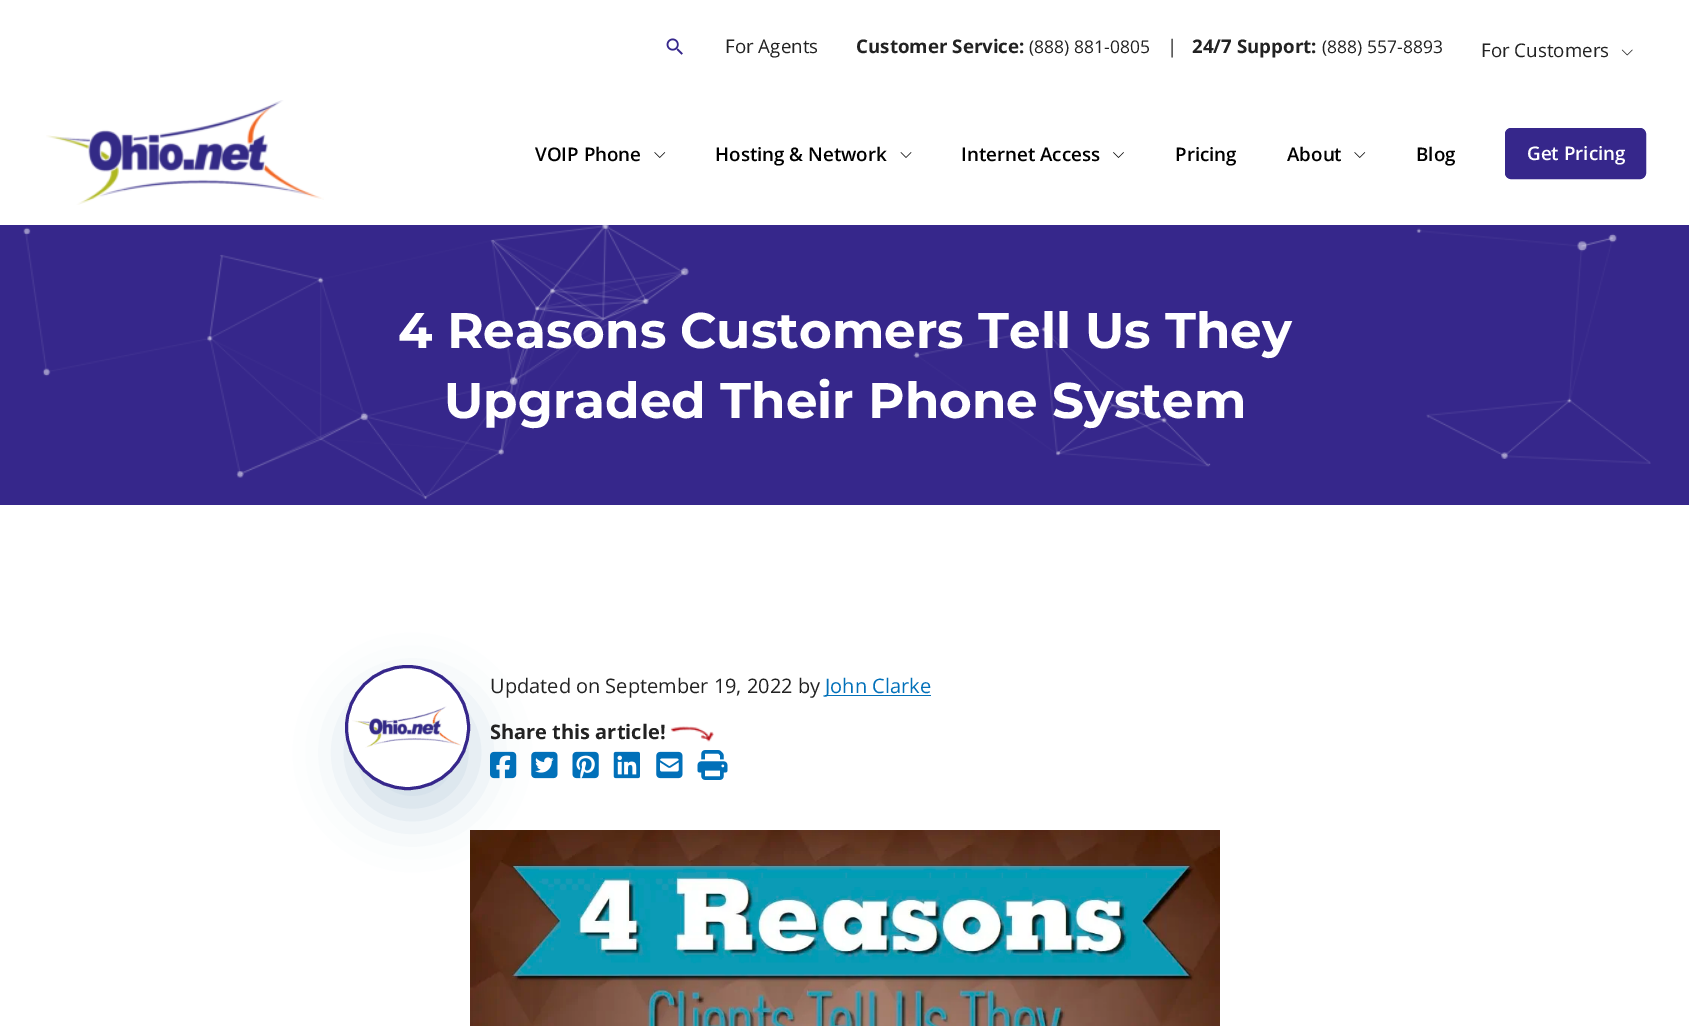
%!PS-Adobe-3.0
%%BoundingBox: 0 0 1689 1026
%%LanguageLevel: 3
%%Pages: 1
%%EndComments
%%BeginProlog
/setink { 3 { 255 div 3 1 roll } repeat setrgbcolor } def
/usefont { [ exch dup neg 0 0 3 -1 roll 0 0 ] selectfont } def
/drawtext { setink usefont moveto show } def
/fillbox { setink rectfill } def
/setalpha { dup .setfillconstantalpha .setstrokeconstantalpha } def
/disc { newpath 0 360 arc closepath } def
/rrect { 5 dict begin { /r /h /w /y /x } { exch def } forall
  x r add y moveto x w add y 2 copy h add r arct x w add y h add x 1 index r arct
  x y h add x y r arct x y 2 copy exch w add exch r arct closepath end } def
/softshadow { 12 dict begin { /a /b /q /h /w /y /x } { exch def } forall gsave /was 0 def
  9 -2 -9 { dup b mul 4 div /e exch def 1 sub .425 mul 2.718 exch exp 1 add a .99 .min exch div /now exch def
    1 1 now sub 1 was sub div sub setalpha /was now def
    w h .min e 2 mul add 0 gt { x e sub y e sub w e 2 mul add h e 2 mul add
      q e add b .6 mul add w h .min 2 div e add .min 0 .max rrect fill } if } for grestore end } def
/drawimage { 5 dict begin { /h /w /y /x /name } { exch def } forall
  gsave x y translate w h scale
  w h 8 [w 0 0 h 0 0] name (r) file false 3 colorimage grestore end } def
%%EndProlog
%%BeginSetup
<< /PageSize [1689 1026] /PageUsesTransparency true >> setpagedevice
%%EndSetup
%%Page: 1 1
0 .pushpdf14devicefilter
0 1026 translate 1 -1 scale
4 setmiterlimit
0 0 1689 1026 255 255 255 fillbox
(assets/img1.rgb) 666 38 17 17 drawimage
(For Agents) 725 53 /OpenSans-Regular 18.75 34 34 34 drawtext
(Customer Service:) 856 53 /OpenSans-Bold 18.75 34 34 34 drawtext
(\(888\) 881-0805) 1029 53 /OpenSans-Regular 17.5 34 34 34 drawtext
(|) 1167 53 /OpenSans-Regular 18.75 34 34 34 drawtext
(24/7 Support:) 1192 53 /OpenSans-Bold 18.75 34 34 34 drawtext
(\(888\) 557-8893) 1322 53 /OpenSans-Regular 17.5 34 34 34 drawtext
(For Customers) 1481 57 /OpenSans-Regular 18.75 34 34 34 drawtext
(assets/img2.rgb) 1621 49 12 7 drawimage
(assets/img3.rgb) 46 100 278 105 drawimage
(VOIP Phone) 535 161 /OpenSans-SemiBold 18.75 0 0 0 drawtext
(assets/img4.rgb) 654 152 12 6 drawimage
(Hosting & Network) 715 161 /OpenSans-SemiBold 18.75 0 0 0 drawtext
(assets/img5.rgb) 900 152 12 6 drawimage
(Internet Access) 961 161 /OpenSans-SemiBold 18.75 0 0 0 drawtext
(assets/img6.rgb) 1113 152 11 6 drawimage
(Pricing) 1175 161 /OpenSans-SemiBold 18.75 0 0 0 drawtext
(About) 1287 161 /OpenSans-SemiBold 18.75 0 0 0 drawtext
(assets/img4.rgb) 1354 152 12 6 drawimage
(Blog) 1416 161 /OpenSans-SemiBold 18.75 0 0 0 drawtext
54 39 139 setink
1505.5 128.5 140 50 5.5 rrect gsave fill grestore
stroke
(Get Pricing) 1527 160 /OpenSans-SemiBold 18.75 255 255 255 drawtext
0 225 1689 280 54 39 139 fillbox
(assets/img7.rgb) 23 225 1628 274 drawimage
(4 Reasons Customers Tell Us They) 398 348 /Montserrat-Thin 50 255 255 255 drawtext
(Upgraded Their Phone System) 444 418 /Montserrat-Thin 50 255 255 255 drawtext
gsave
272 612 moveto 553 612 lineto 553 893 lineto 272 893 lineto closepath 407.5 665 moveto 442 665 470 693 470 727.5 curveto 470 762 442 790 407.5 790 curveto 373 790 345 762 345 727.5 curveto 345 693 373 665 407.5 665 curveto closepath eoclip newpath
6 67 130 setink
350 690 125 125 62.5 25.5 0.19 softshadow
grestore
54 39 139 setink
3 setlinewidth
407.5 727.5 61 disc stroke
(assets/img8.rgb) 352 706 109 42 drawimage
(Updated on September 19, 2022 by) 490 693 /OpenSans-Regular 20 34 34 34 drawtext
825 695 106 1 1 112 185 fillbox
(John Clarke) 825 693 /OpenSans-Regular 20 1 112 185 drawtext
(Share this article!) 490 739 /OpenSans-Bold 20 34 34 34 drawtext
(assets/img9.rgb) 670 726 44 16 drawimage
(assets/img10.rgb) 490 751 27 28 drawimage
(assets/img11.rgb) 531 751 27 28 drawimage
(assets/img12.rgb) 572 751 27 28 drawimage
(assets/img13.rgb) 613 751 27 28 drawimage
(assets/img14.rgb) 656 751 27 28 drawimage
(assets/img15.rgb) 697 750 31 30 drawimage
(assets/img16.rgb) 470 830 750 196 drawimage
.poppdf14devicefilter showpage
%%EOF
